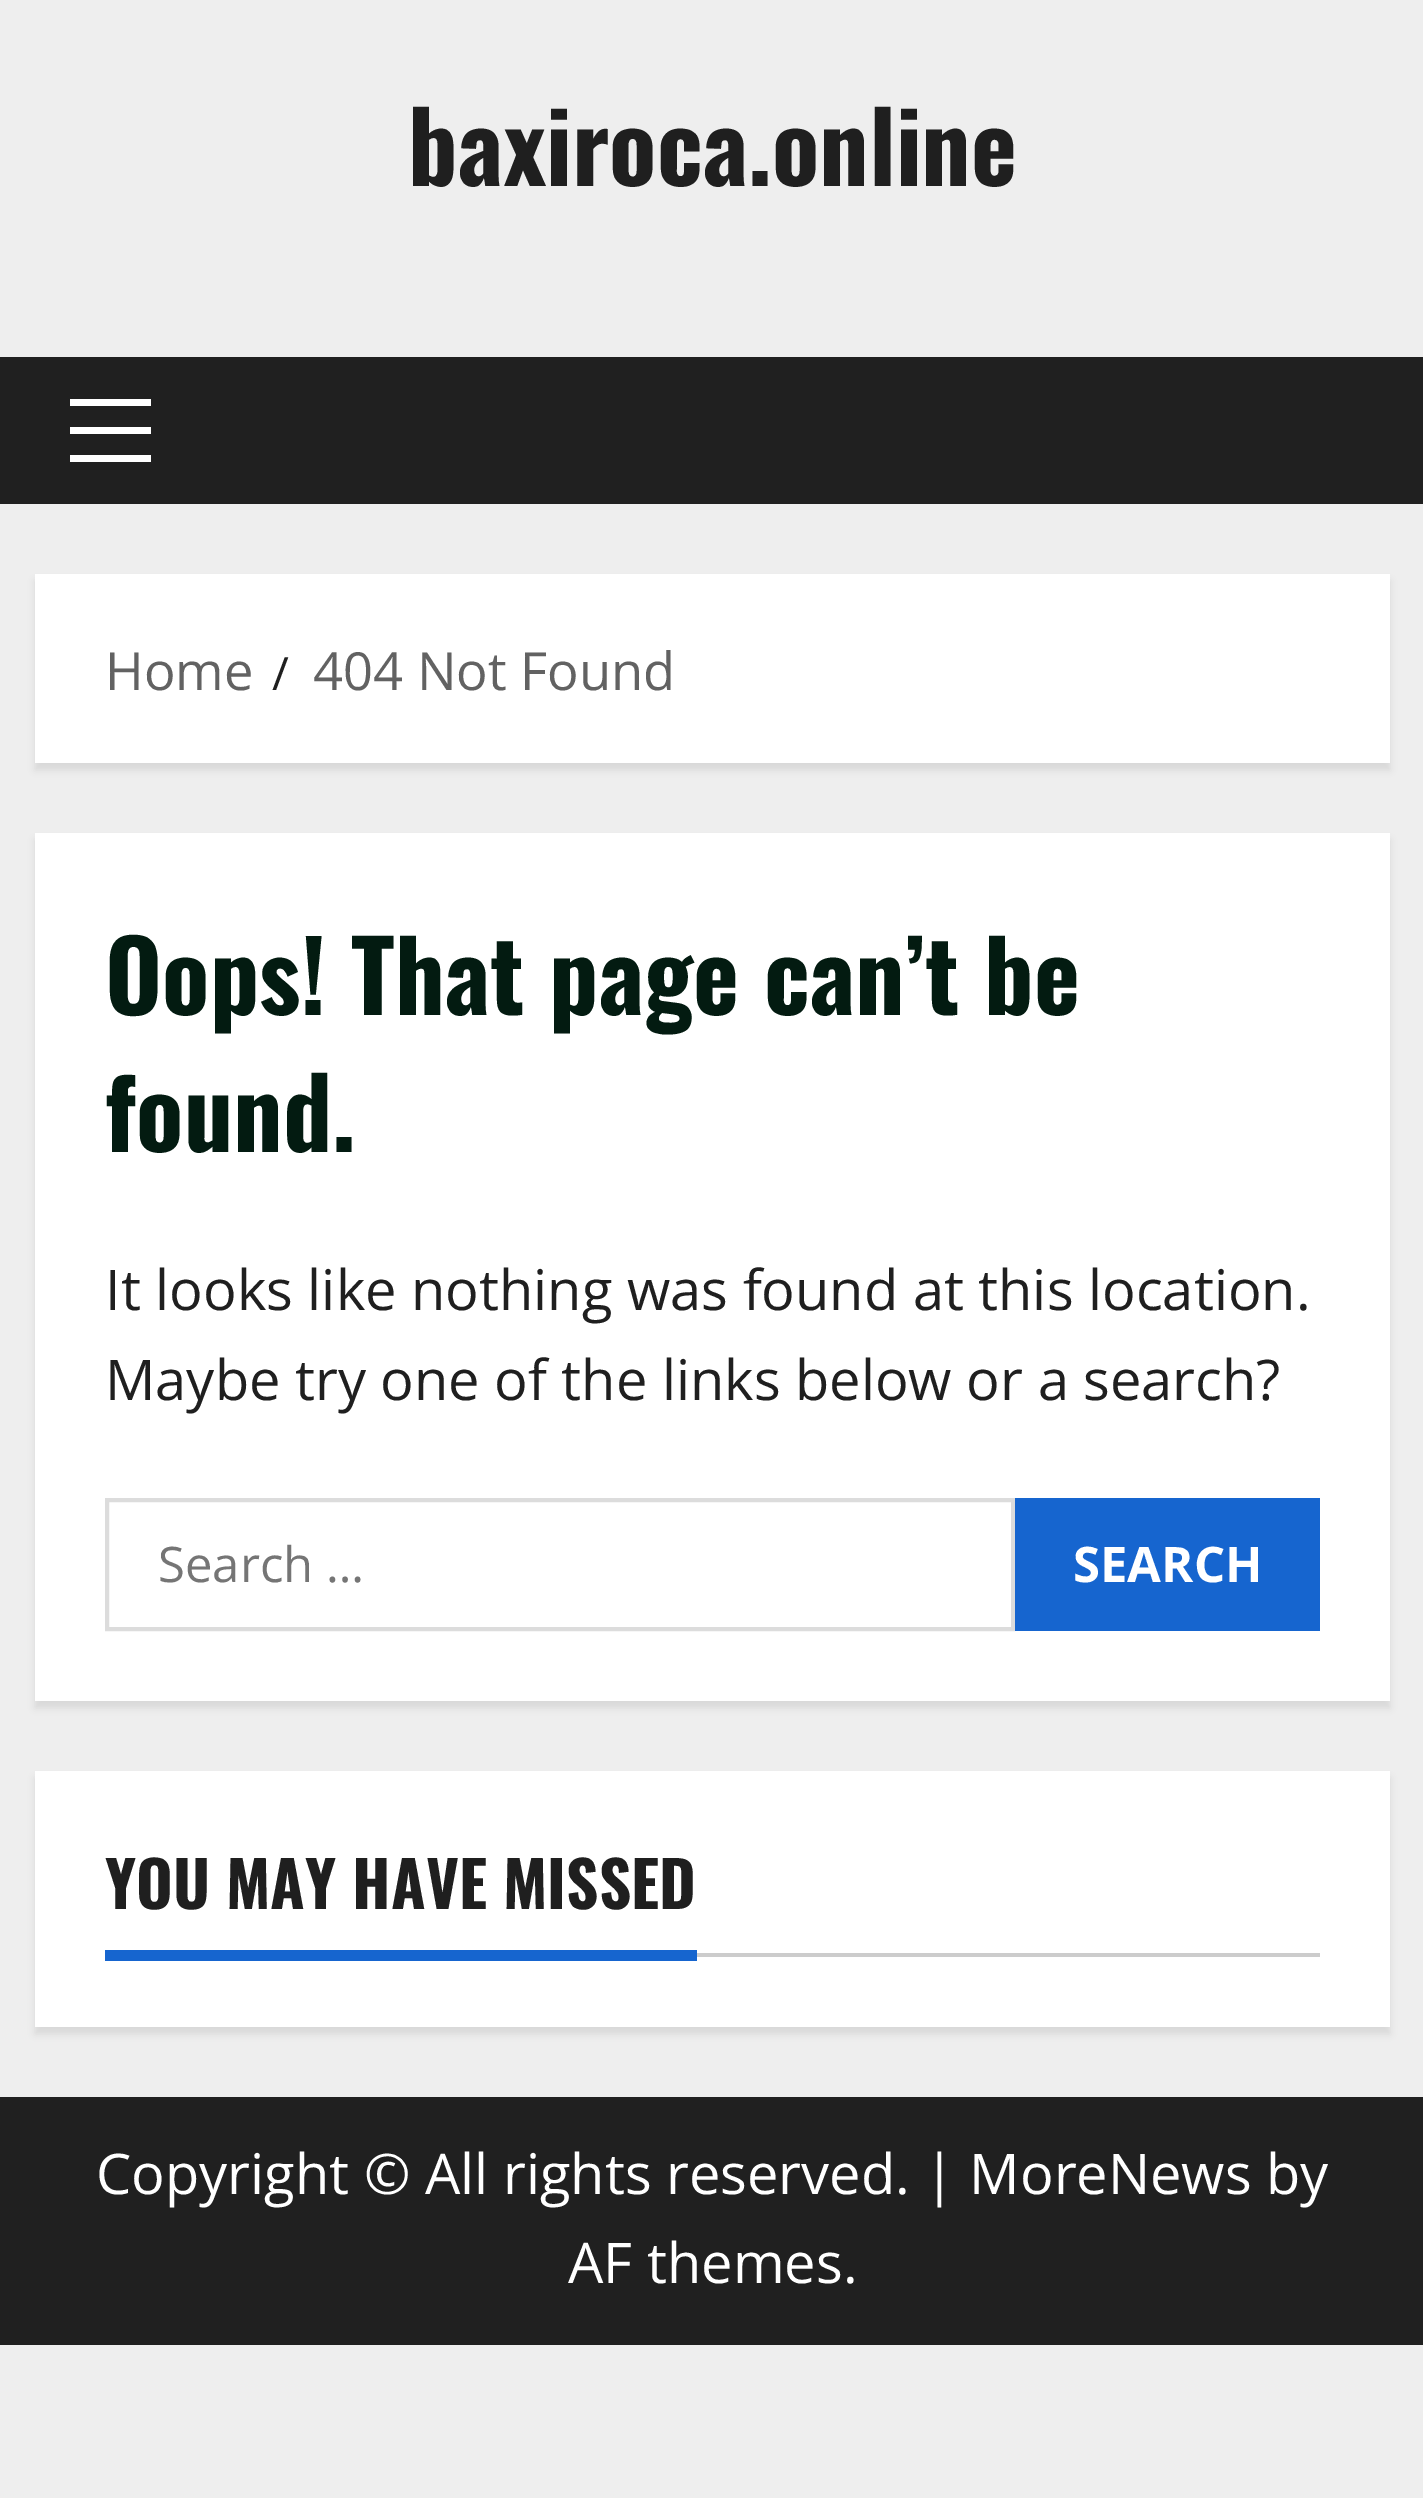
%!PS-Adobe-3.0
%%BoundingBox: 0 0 1423 2498
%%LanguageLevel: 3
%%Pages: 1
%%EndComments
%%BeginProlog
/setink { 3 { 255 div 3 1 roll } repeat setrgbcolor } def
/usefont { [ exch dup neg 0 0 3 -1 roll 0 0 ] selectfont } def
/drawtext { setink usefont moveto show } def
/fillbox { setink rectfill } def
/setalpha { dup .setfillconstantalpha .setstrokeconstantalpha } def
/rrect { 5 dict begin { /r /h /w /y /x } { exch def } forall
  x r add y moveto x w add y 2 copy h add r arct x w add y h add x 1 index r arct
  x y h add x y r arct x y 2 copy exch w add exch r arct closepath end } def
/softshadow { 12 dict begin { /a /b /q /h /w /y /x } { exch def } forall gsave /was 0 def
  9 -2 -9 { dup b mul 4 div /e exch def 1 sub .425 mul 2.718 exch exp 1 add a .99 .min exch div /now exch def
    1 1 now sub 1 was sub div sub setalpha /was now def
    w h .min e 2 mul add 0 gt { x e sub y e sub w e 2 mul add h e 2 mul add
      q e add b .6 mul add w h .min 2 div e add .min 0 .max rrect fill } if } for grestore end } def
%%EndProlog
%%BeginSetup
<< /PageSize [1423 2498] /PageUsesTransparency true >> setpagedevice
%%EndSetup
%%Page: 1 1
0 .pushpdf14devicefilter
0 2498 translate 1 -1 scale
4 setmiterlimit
0 0 1423 2498 238 238 238 fillbox
(baxiroca.online) 408 186 /Oswald-Bold 98 31 31 31 drawtext
0 357 1423 147 32 32 32 fillbox
70 427 81 7 255 255 255 fillbox
70 399 81 7 255 255 255 fillbox
70 455 81 7 255 255 255 fillbox
0 0 0 setink
35 581 1355 189 0 3.5 0.08 softshadow
35 574 1355 189 255 255 255 fillbox
(Home) 105 690 /OpenSans-Regular 52.5 98 98 98 drawtext
(/) 272 690 /OpenSans-Regular 46 31 31 31 drawtext
(404 Not Found) 313 690 /OpenSans-Regular 52.5 98 98 98 drawtext
0 0 0 setink
35 840 1355 868 0 3.5 0.08 softshadow
35 833 1355 868 255 255 255 fillbox
(Oops! That page can’t be) 105 1015 /Oswald-Bold 98 3 27 17 drawtext
(found.) 105 1152 /Oswald-Bold 98 3 27 17 drawtext
(It looks like nothing was found at this location.) 105 1310 /OpenSans-Regular 56 31 31 31 drawtext
(Maybe try one of the links below or a search?) 105 1400 /OpenSans-Regular 56 31 31 31 drawtext
220 220 220 setink
4 setlinewidth
107 1500 906 129 rectstroke
(Search …) 158 1582 /OpenSans-Regular 49 117 117 117 drawtext
1015 1498 305 133 22 101 207 fillbox
(SEARCH) 1073 1582 /OpenSans-Bold 49 255 255 255 drawtext
0 0 0 setink
35 1778 1355 256 0 3.5 0.08 softshadow
35 1771 1355 256 255 255 255 fillbox
697 1953 623 4 204 204 204 fillbox
(YOU MAY HAVE MISSED) 105 1909 /Oswald-Bold 63 31 31 31 drawtext
105 1950 592 11 22 101 207 fillbox
0 2097 1423 248 32 32 32 fillbox
(Copyright © All rights reserved. | MoreNews by) 96 2194 /OpenSans-Regular 56 255 255 255 drawtext
(AF themes.) 568 2283 /OpenSans-Regular 56 255 255 255 drawtext
.poppdf14devicefilter showpage
%%EOF
